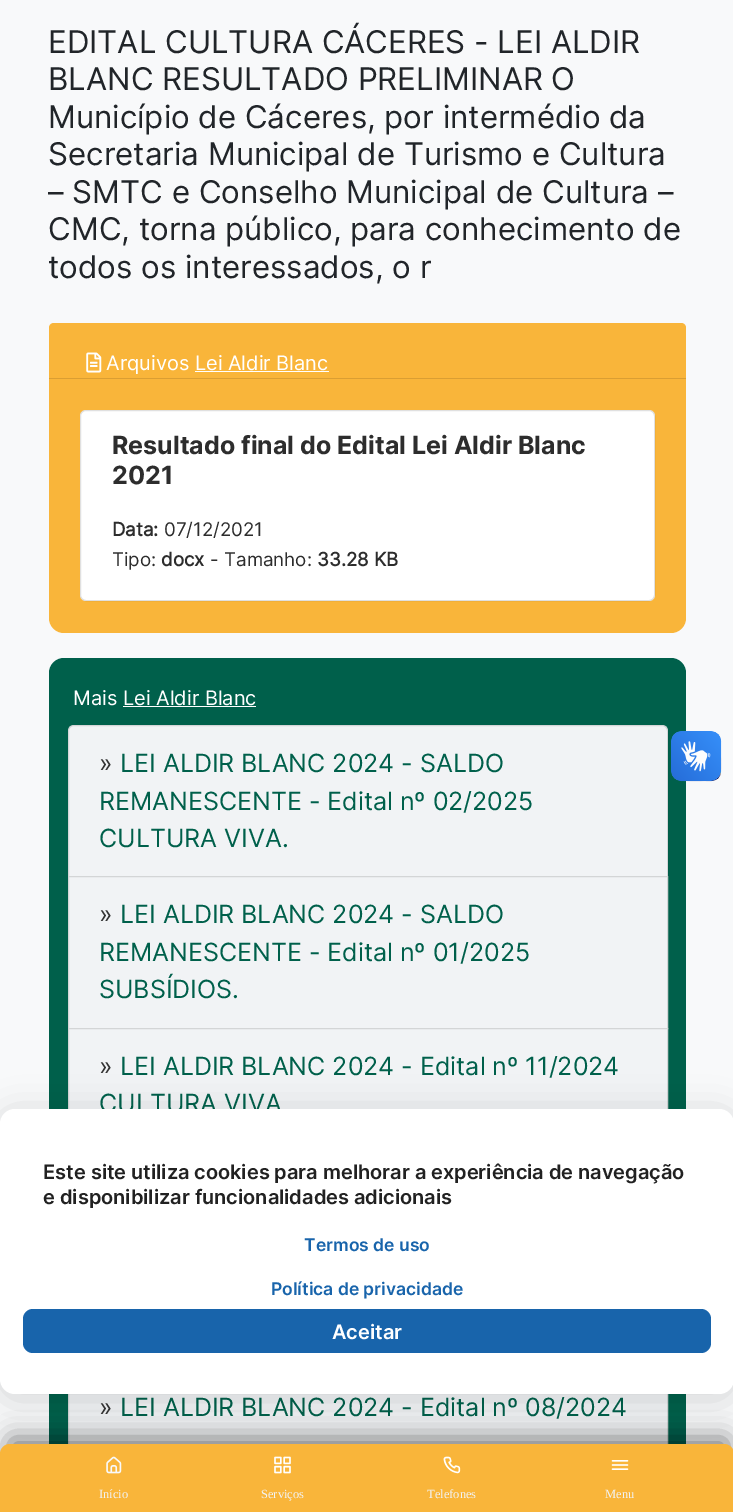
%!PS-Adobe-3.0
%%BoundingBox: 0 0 733 1512
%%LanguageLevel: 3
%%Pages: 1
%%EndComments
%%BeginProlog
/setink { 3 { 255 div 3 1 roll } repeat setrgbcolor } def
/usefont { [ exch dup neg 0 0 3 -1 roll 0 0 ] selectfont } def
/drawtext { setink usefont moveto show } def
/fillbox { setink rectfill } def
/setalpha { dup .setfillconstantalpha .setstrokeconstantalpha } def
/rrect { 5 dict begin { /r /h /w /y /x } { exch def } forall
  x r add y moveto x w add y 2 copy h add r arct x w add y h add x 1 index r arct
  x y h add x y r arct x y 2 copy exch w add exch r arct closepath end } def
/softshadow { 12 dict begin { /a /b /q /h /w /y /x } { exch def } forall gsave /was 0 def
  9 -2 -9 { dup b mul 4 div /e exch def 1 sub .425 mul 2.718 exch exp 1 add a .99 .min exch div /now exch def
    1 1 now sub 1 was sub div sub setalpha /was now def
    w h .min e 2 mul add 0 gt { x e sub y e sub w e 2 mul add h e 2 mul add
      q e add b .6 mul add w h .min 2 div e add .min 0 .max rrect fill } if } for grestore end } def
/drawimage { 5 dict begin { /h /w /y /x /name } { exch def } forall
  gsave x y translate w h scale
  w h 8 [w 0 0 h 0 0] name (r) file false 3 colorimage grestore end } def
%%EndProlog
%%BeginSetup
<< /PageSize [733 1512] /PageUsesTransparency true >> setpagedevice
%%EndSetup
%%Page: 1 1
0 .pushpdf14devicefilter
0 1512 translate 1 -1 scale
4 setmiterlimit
0 0 733 1512 248 249 250 fillbox
(EDITAL CULTURA CÁCERES - LEI ALDIR) 48 53 /Inter-Regular 31.25 33 37 41 drawtext
(BLANC RESULTADO PRELIMINAR O) 48 90 /Inter-Regular 31.25 33 37 41 drawtext
(Município de Cáceres, por intermédio da) 48 128 /Inter-Regular 31.25 33 37 41 drawtext
(Secretaria Municipal de Turismo e Cultura) 48 165 /Inter-Regular 31.25 33 37 41 drawtext
(– SMTC e Conselho Municipal de Cultura –) 48 203 /Inter-Regular 31.25 33 37 41 drawtext
(CMC, torna público, para conhecimento de) 48 240 /Inter-Regular 31.25 33 37 41 drawtext
(todos os interessados, o r) 48 278 /Inter-Regular 31.25 33 37 41 drawtext
249 181 58 setink
49 323 637 310 15 rrect fill
54 323 moveto 681 323 lineto 684 323 686 325 686 328 curveto 686 379 lineto 49 379 lineto 49 328 lineto 49 325 51 323 54 323 curveto closepath fill
49 378 637 1 218 158 51 fillbox
(assets/img1.rgb) 86 352 16 21 drawimage
(Arquivos Lei Aldir Blanc) 106 370 /Inter-Regular 20 255 255 255 drawtext
195 371 134 1 255 255 255 fillbox
80 410 575 191 6 rrect fill
0.12 setalpha
0 0 0 setink
80.5 410.5 574 190 5.5 rrect stroke
1 setalpha
(Resultado final do Edital Lei Aldir Blanc) 112 454 /Inter-Bold 25 45 45 45 drawtext
(2021) 112 484 /Inter-Bold 25 45 45 45 drawtext
(Data:) 112 536 /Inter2-Bold 18.75 45 45 45 drawtext
(07/12/2021) 164 536 /Inter-Regular 18.75 45 45 45 drawtext
(Tipo:) 112 566 /Inter-Regular 18.75 45 45 45 drawtext
(docx) 161 566 /Inter2-Bold 18.75 45 45 45 drawtext
(- Tamanho:) 210 566 /Inter-Regular 18.75 45 45 45 drawtext
(33.28 KB) 317 566 /Inter2-Bold 18.75 45 45 45 drawtext
0 96 75 setink
49 658 637 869 15 rrect fill
(Mais Lei Aldir Blanc) 73 705 /Inter-Regular 20 255 255 255 drawtext
123 706 133 1 255 255 255 fillbox
241 243 245 setink
74 725 moveto 662 725 lineto 665.5 725 668 727.5 668 731 curveto 668 878 lineto 68 878 lineto 68 731 lineto 68 727.5 70.5 725 74 725 curveto closepath fill
0.12 setalpha
0 0 0 setink
74 725.5 moveto 662 725.5 lineto 665 725.5 667.5 728 667.5 731 curveto 667.5 877.5 lineto 68.5 877.5 lineto 68.5 731 lineto 68.5 728 71 725.5 74 725.5 curveto closepath stroke
1 setalpha
(») 99 772 /Inter-Regular 25 51 51 51 drawtext
(LEI ALDIR BLANC 2024 - SALDO) 120 772 /Inter-Regular 25 0 96 75 drawtext
(REMANESCENTE - Edital nº 02/2025) 99 810 /Inter-Regular 25 0 96 75 drawtext
(CULTURA VIVA.) 99 847 /Inter-Regular 25 0 96 75 drawtext
241 243 245 setink
68.5 876.5 moveto 667.5 876.5 lineto 667.5 1028.5 lineto 68.5 1028.5 lineto closepath gsave fill grestore
211 213 214 setink
stroke
(») 99 923 /Inter-Regular 25 51 51 51 drawtext
(LEI ALDIR BLANC 2024 - SALDO) 120 923 /Inter-Regular 25 0 96 75 drawtext
(REMANESCENTE - Edital nº 01/2025) 99 961 /Inter-Regular 25 0 96 75 drawtext
(SUBSÍDIOS.) 99 998 /Inter-Regular 25 0 96 75 drawtext
69 1029 598 80 241 243 245 fillbox
211 213 214 setink
68.5 1028.5 599 114 rectstroke
(») 99 1075 /Inter-Regular 25 51 51 51 drawtext
(LEI ALDIR BLANC 2024 - Edital nº 11/2024) 120 1075 /Inter-Regular 25 0 96 75 drawtext
(CULTURA VIVA) 99 1112 /Inter-Regular 25 0 96 75 drawtext
69 1394 598 50 241 243 245 fillbox
211 213 214 setink
68.5 1369.5 599 114 rectstroke
(») 99 1416 /Inter-Regular 25 51 51 51 drawtext
(LEI ALDIR BLANC 2024 - Edital nº 08/2024) 120 1416 /Inter-Regular 25 0 96 75 drawtext
(assets/img2.rgb) 671 731 51 51 drawimage
(assets/img3.rgb) 671 731 50 50 drawimage
0 0 0 setink
0 1114 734 285 15 17.5 0.15 softshadow
255 255 255 setink
0 1109 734 285 15 rrect fill
(Este site utiliza cookies para melhorar a experiência de navegação) 43 1179 /Inter-SemiBold 20 33 33 33 drawtext
(e disponibilizar funcionalidades adicionais) 43 1204 /Inter-SemiBold 20 33 33 33 drawtext
(Termos de uso) 304 1251 /Inter-SemiBold 17.5 24 100 171 drawtext
(Política de privacidade) 271 1295 /Inter-SemiBold 17.5 24 100 171 drawtext
23 1309 688 44 10 rrect fill
(Aceitar) 332 1339 /Inter-SemiBold 20 255 255 255 drawtext
0 0 0 setink
9 1438 719 53 2.5 12.5 0.49 softshadow
249 181 58 setink
10 1444 moveto 724 1444 lineto 729.5 1444 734 1448.5 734 1454 curveto 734 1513 lineto 0 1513 lineto 0 1454 lineto 0 1448.5 4.5 1444 10 1444 curveto closepath fill
(assets/img4.rgb) 106 1456 16 18 drawimage
(Início) 99 1498 /LiberationSerif-Regular 12.5 241 243 245 drawtext
(assets/img5.rgb) 274 1456 17 18 drawimage
(Serviços) 261 1498 /LiberationSerif-Regular 12.5 241 243 245 drawtext
(assets/img6.rgb) 443 1456 18 18 drawimage
(Telefones) 427 1498 /LiberationSerif-Regular 12.5 241 243 245 drawtext
(assets/img7.rgb) 611 1460 18 10 drawimage
(Menu) 605 1498 /LiberationSerif-Regular 12.5 241 243 245 drawtext
.poppdf14devicefilter showpage
%%EOF
